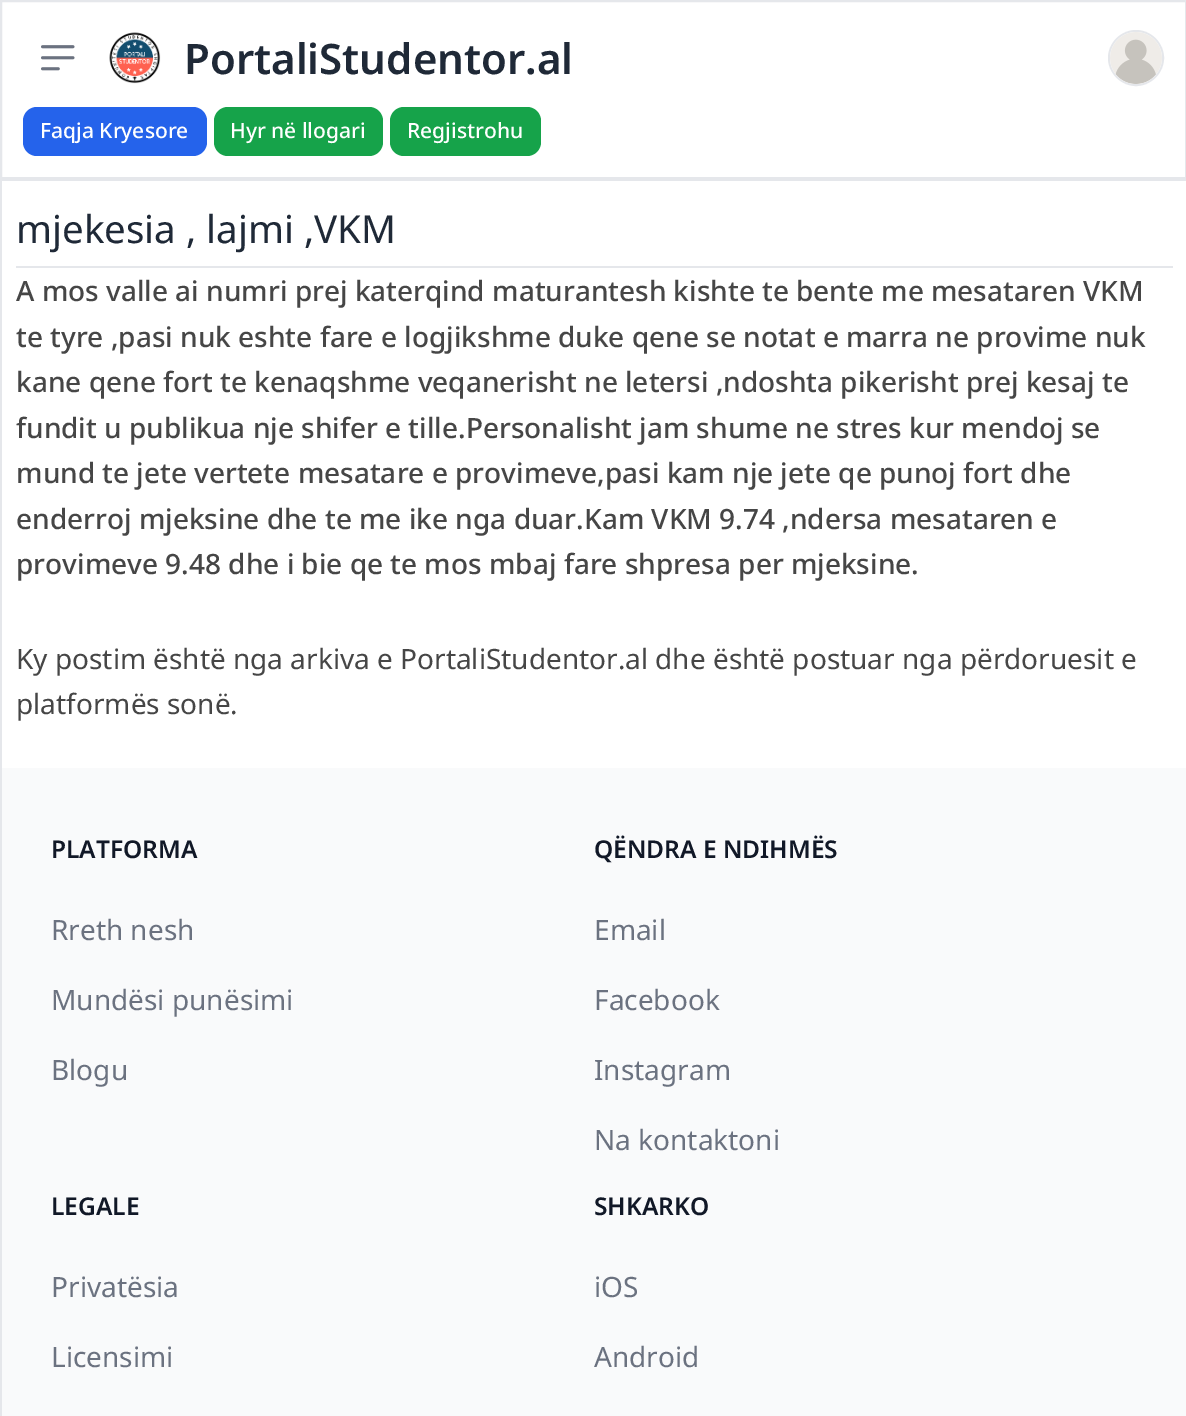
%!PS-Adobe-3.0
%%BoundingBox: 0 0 1186 1416
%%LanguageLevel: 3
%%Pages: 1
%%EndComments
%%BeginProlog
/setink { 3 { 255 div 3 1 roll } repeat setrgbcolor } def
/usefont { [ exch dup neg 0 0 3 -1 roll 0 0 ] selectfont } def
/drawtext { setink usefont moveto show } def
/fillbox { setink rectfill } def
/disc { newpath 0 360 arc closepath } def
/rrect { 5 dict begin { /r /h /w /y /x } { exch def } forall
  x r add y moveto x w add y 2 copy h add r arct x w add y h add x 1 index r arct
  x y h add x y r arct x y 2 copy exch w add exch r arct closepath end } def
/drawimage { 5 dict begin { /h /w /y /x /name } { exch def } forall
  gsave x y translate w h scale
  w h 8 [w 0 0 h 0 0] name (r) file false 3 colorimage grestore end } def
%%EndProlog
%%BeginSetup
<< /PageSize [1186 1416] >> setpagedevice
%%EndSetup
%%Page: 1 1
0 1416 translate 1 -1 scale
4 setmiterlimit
0 0 1186 1416 255 255 255 fillbox
229 231 235 setink
2 setlinewidth
1 1 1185 177 rectstroke
(assets/img1.rgb) 41 45 34 26 drawimage
(assets/img2.rgb) 109 32 52 52 drawimage
(PortaliStudentor.al) 184 74 /NotoSans-SemiBold 42 31 41 55 drawtext
229 231 235 setink
1136 58 27 disc stroke
(assets/img3.rgb) 1110 32 52 52 drawimage
37 99 235 setink
23 107 184 49 14 rrect fill
(Faqja Kryesore) 40 138 /NotoSans-Medium 21 255 255 255 drawtext
22 163 74 setink
214 107 169 49 14 rrect fill
(Hyr në llogari) 230 138 /NotoSans-Medium 21 255 255 255 drawtext
22 163 74 setink
390 107 151 49 14 rrect fill
(Regjistrohu) 407 138 /NotoSans-Medium 21 255 255 255 drawtext
0 179 1186 2 229 231 235 fillbox
0 179 2 1237 229 231 235 fillbox
(mjekesia , lajmi ,VKM) 16 243 /NotoSans-Regular 38.5 31 41 55 drawtext
16 266 1157 2 229 231 235 fillbox
(A mos valle ai numri prej katerqind maturantesh kishte te bente me mesataren VKM) 16 301 /NotoSans-Medium 28 70 70 70 drawtext
(te tyre ,pasi nuk eshte fare e logjikshme duke qene se notat e marra ne provime nuk) 16 347 /NotoSans-Medium 28 70 70 70 drawtext
(kane qene fort te kenaqshme veqanerisht ne letersi ,ndoshta pikerisht prej kesaj te) 16 392 /NotoSans-Medium 28 70 70 70 drawtext
(fundit u publikua nje shifer e tille.Personalisht jam shume ne stres kur mendoj se) 16 438 /NotoSans-Medium 28 70 70 70 drawtext
(mund te jete vertete mesatare e provimeve,pasi kam nje jete qe punoj fort dhe) 16 483 /NotoSans-Medium 28 70 70 70 drawtext
(enderroj mjeksine dhe te me ike nga duar.Kam VKM 9.74 ,ndersa mesataren e) 16 529 /NotoSans-Medium 28 70 70 70 drawtext
(provimeve 9.48 dhe i bie qe te mos mbaj fare shpresa per mjeksine.) 16 574 /NotoSans-Medium 28 70 70 70 drawtext
(Ky postim është nga arkiva e PortaliStudentor.al dhe është postuar nga përdoruesit e) 16 669 /NotoSans-Regular 28 70 70 70 drawtext
(platformës sonë.) 16 714 /NotoSans-Regular 28 70 70 70 drawtext
2 768 1184 648 249 250 251 fillbox
(PLATFORMA) 51 858 /NotoSans-SemiBold 24.5 17 24 39 drawtext
(Rreth nesh) 51 940 /NotoSans-Regular 28 107 114 128 drawtext
(Mundësi punësimi) 51 1010 /NotoSans-Regular 28 107 114 128 drawtext
(Blogu) 51 1080 /NotoSans-Regular 28 107 114 128 drawtext
(QËNDRA E NDIHMËS) 594 858 /NotoSans-SemiBold 24.5 17 24 39 drawtext
(Email) 594 940 /NotoSans-Regular 28 107 114 128 drawtext
(Facebook) 594 1010 /NotoSans-Regular 28 107 114 128 drawtext
(Instagram) 594 1080 /NotoSans-Regular 28 107 114 128 drawtext
(Na kontaktoni) 594 1150 /NotoSans-Regular 28 107 114 128 drawtext
(LEGALE) 51 1215 /NotoSans-SemiBold 24.5 17 24 39 drawtext
(Privatësia) 51 1297 /NotoSans-Regular 28 107 114 128 drawtext
(Licensimi) 51 1367 /NotoSans-Regular 28 107 114 128 drawtext
(SHKARKO) 594 1215 /NotoSans-SemiBold 24.5 17 24 39 drawtext
(iOS) 594 1297 /NotoSans-Regular 28 107 114 128 drawtext
(Android) 594 1367 /NotoSans-Regular 28 107 114 128 drawtext
showpage
%%EOF
